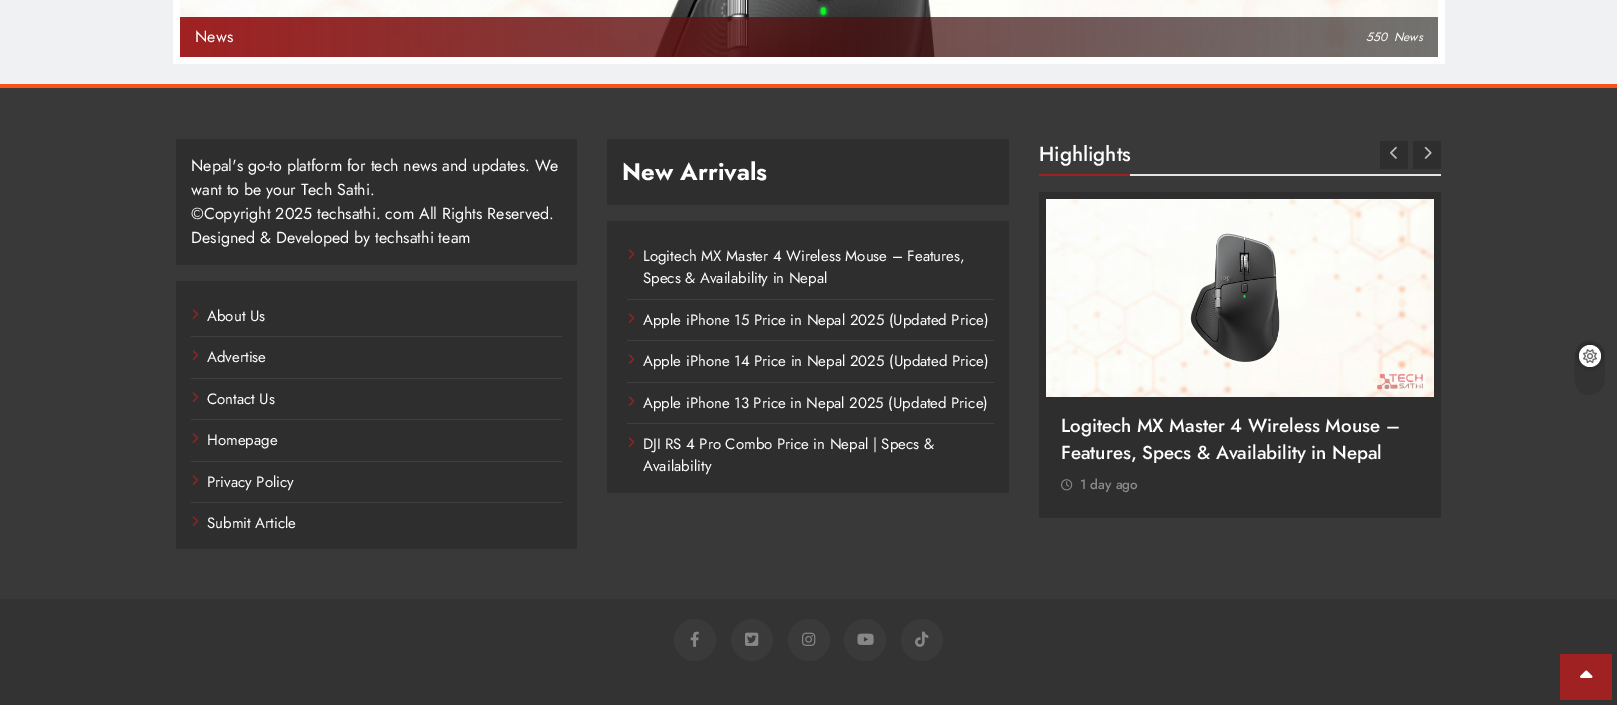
%!PS-Adobe-3.0
%%BoundingBox: 0 0 1617 705
%%LanguageLevel: 3
%%Pages: 1
%%EndComments
%%BeginProlog
/setink { 3 { 255 div 3 1 roll } repeat setrgbcolor } def
/usefont { [ exch dup neg 0 0 3 -1 roll 0 0 ] selectfont } def
/drawtext { setink usefont moveto show } def
/fillbox { setink rectfill } def
/setalpha { dup .setfillconstantalpha .setstrokeconstantalpha } def
/disc { newpath 0 360 arc closepath } def
/rrect { 5 dict begin { /r /h /w /y /x } { exch def } forall
  x r add y moveto x w add y 2 copy h add r arct x w add y h add x 1 index r arct
  x y h add x y r arct x y 2 copy exch w add exch r arct closepath end } def
/softshadow { 12 dict begin { /a /b /q /h /w /y /x } { exch def } forall gsave /was 0 def
  9 -2 -9 { dup b mul 4 div /e exch def 1 sub .425 mul 2.718 exch exp 1 add a .99 .min exch div /now exch def
    1 1 now sub 1 was sub div sub setalpha /was now def
    w h .min e 2 mul add 0 gt { x e sub y e sub w e 2 mul add h e 2 mul add
      q e add b .6 mul add w h .min 2 div e add .min 0 .max rrect fill } if } for grestore end } def
/drawimage { 5 dict begin { /h /w /y /x /name } { exch def } forall
  gsave x y translate w h scale
  w h 8 [w 0 0 h 0 0] name (r) file false 3 colorimage grestore end } def
%%EndProlog
%%BeginSetup
<< /PageSize [1617 705] /PageUsesTransparency true >> setpagedevice
%%EndSetup
%%Page: 1 1
0 .pushpdf14devicefilter
0 705 translate 1 -1 scale
4 setmiterlimit
0 0 1617 705 240 241 242 fillbox
173 0 1272 64 255 255 255 fillbox
(assets/img1.rgb) 180 0 1258 57 drawimage
(News) 195 42 /Jost-Regular 16 255 255 255 drawtext
(550) 1366 41 /Jost-Italic 12 255 255 255 drawtext
(News) 1394 41 /Jost-Italic 12 255 255 255 drawtext
0 88 1617 511 57 57 57 fillbox
51 51 51 setink
1605 356 moveto 1605 380 lineto 1604 396 1582 401 1576 386 curveto 1574 380 1574 362 1575 356 curveto 1575 335 1605 336 1605 356 curveto closepath fill
0 0 0 setink
1579 345 22 22 11 2.5 0.35 softshadow
255 255 255 setink
1590 356 11 disc fill
(assets/img2.rgb) 1583 349 14 15 drawimage
0 84 1617 4 253 79 24 fillbox
176 139 401 126 46 46 46 fillbox
(Nepal's go-to platform for tech news and updates. We) 191 171 /Jost-Regular 16 255 255 255 drawtext
(want to be your Tech Sathi.) 191 195 /Jost-Regular 16 255 255 255 drawtext
(©Copyright 2025 techsathi. com All Rights Reserved.) 191 219 /Jost-Regular 16 255 255 255 drawtext
(Designed & Developed by techsathi team) 191 243 /Jost-Regular 16 255 255 255 drawtext
176 281 401 268 46 46 46 fillbox
191 336 371 1 63 63 63 fillbox
(assets/img3.rgb) 192 309 7 10 drawimage
(About Us) 207 321 /Jost-Regular 15 255 255 255 drawtext
191 378 371 1 63 63 63 fillbox
(assets/img3.rgb) 192 350 7 10 drawimage
(Advertise) 207 362 /Jost-Regular 15 255 255 255 drawtext
191 419 371 1 63 63 63 fillbox
(assets/img3.rgb) 192 392 7 10 drawimage
(Contact Us) 207 404 /Jost-Regular 15 255 255 255 drawtext
191 461 371 1 63 63 63 fillbox
(assets/img3.rgb) 192 433 7 10 drawimage
(Homepage) 207 445 /Jost-Regular 15 255 255 255 drawtext
191 502 371 1 63 63 63 fillbox
(assets/img3.rgb) 192 475 7 10 drawimage
(Privacy Policy) 207 487 /Jost-Regular 15 255 255 255 drawtext
(assets/img3.rgb) 192 516 7 10 drawimage
(Submit Article) 207 528 /Jost-Regular 15 255 255 255 drawtext
607 139 402 66 46 46 46 fillbox
(New Arrivals) 622 180 /Jost-Bold 24 255 255 255 drawtext
607 221 402 272 46 46 46 fillbox
627 299 367 1 63 63 63 fillbox
(assets/img3.rgb) 628 249 7 10 drawimage
(Logitech MX Master 4 Wireless Mouse – Features,) 643 261 /Jost-Regular 15 255 255 255 drawtext
(Specs & Availability in Nepal) 643 283 /Jost-Regular 15 255 255 255 drawtext
627 340 367 1 63 63 63 fillbox
(assets/img3.rgb) 628 313 7 10 drawimage
(Apple iPhone 15 Price in Nepal 2025 \(Updated Price\)) 643 325 /Jost-Regular 15 255 255 255 drawtext
627 382 367 1 63 63 63 fillbox
(assets/img3.rgb) 628 354 7 10 drawimage
(Apple iPhone 14 Price in Nepal 2025 \(Updated Price\)) 643 366 /Jost-Regular 15 255 255 255 drawtext
627 423 367 1 63 63 63 fillbox
(assets/img3.rgb) 628 396 7 10 drawimage
(Apple iPhone 13 Price in Nepal 2025 \(Updated Price\)) 643 408 /Jost-Regular 15 255 255 255 drawtext
(assets/img3.rgb) 628 437 7 10 drawimage
(DJI RS 4 Pro Combo Price in Nepal | Specs &) 643 449 /Jost-Regular 15 255 255 255 drawtext
(Availability) 643 471 /Jost-Regular 15 255 255 255 drawtext
1130 174 311 2 229 229 229 fillbox
1039 174 91 2 160 33 33 fillbox
(Highlights) 1039 161 /Jost-Medium 20.5 255 255 255 drawtext
1380 141 28 28 46 46 46 fillbox
(assets/img4.rgb) 1390 146 7 13 drawimage
1413 141 28 28 46 46 46 fillbox
(assets/img5.rgb) 1424 146 8 13 drawimage
1039 192 402 326 46 46 46 fillbox
(assets/img6.rgb) 1046 199 388 198 drawimage
(Logitech MX Master 4 Wireless Mouse –) 1061 432 /Jost-Medium 18.75 255 255 255 drawtext
(Features, Specs & Availability in Nepal) 1061 459 /Jost-Medium 18.75 255 255 255 drawtext
(assets/img7.rgb) 1061 479 12 12 drawimage
(1 day ago) 1080 489 /Jost-Medium 13.5 138 138 140 drawtext
0 599 1617 106 51 51 51 fillbox
58 58 58 setink
695 640 21 disc fill
(assets/img8.rgb) 690 631 9 16 drawimage
752 640 21 disc fill
(assets/img9.rgb) 745 632 14 14 drawimage
809 640 21 disc fill
(assets/img10.rgb) 802 632 14 14 drawimage
865 640 21 disc fill
(assets/img11.rgb) 857 633 17 12 drawimage
922 640 21 disc fill
(assets/img12.rgb) 915 631 14 16 drawimage
1560 654 52 46 160 33 33 fillbox
(assets/img13.rgb) 1580 670 13 8 drawimage
.poppdf14devicefilter showpage
%%EOF
